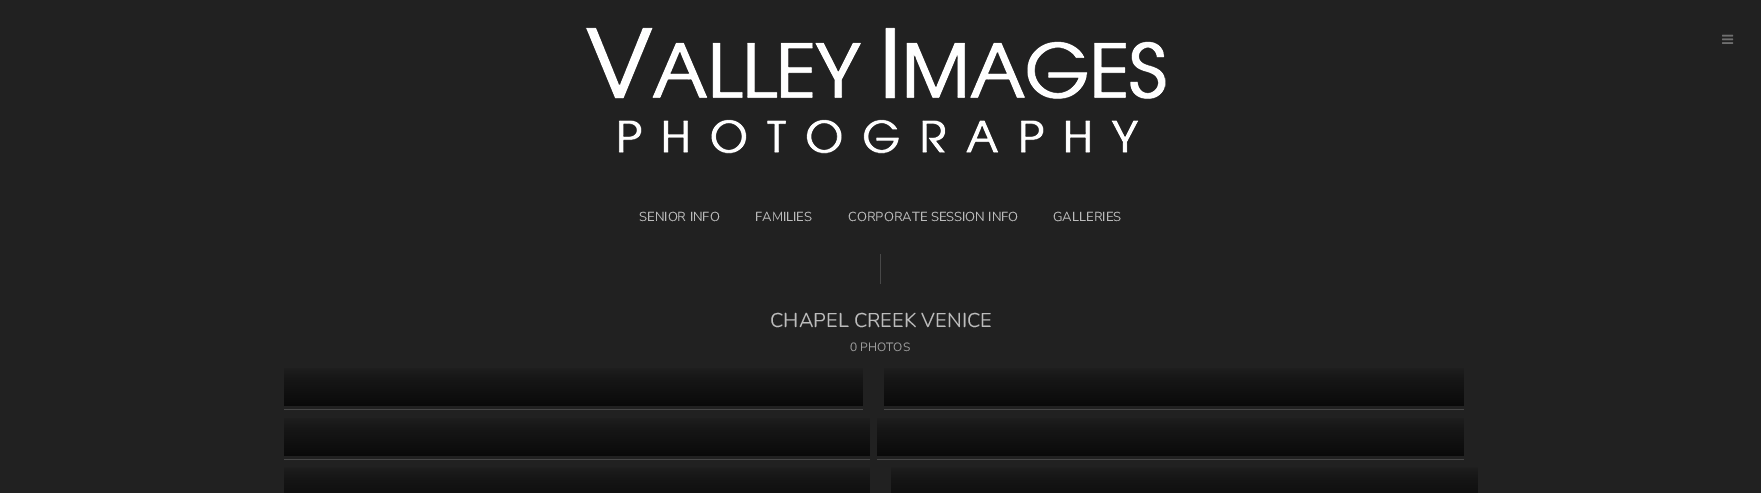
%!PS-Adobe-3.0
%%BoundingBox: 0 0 1761 493
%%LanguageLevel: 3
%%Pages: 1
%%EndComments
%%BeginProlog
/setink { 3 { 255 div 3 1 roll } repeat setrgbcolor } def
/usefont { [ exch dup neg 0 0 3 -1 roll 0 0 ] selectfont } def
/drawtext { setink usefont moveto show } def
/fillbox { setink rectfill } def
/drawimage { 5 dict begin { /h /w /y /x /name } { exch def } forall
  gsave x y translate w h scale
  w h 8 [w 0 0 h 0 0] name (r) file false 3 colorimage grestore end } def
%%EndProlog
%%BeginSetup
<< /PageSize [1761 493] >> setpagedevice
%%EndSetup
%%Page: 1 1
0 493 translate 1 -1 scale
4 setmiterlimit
0 0 1761 493 33 33 33 fillbox
(assets/img1.rgb) 1722 34 12 10 drawimage
(assets/img2.rgb) 585 27 581 127 drawimage
(SENIOR INFO) 639 221 /NunitoSans-ExtraLight 13 188 188 188 drawtext
(FAMILIES) 755 221 /NunitoSans-ExtraLight 13 188 188 188 drawtext
(CORPORATE SESSION INFO) 848 221 /NunitoSans-ExtraLight 13 188 188 188 drawtext
(GALLERIES) 1053 221 /NunitoSans-ExtraLight 13 188 188 188 drawtext
880 254 1 30 72 72 72 fillbox
(CHAPEL CREEK VENICE) 770 327 /Nunito-ExtraLight 20 188 188 188 drawtext
(0 PHOTOS) 850 351 /NunitoSans-ExtraLight 12 157 157 157 drawtext
gsave 284 368 moveto 863 368 lineto 863 406 lineto 284 406 lineto closepath clip newpath
<< /ShadingType 2 /ColorSpace /DeviceRGB /Coords [574 406 574 365] /Extend [true true] /Function << /FunctionType 3 /Domain [0 1] /Functions [<< /FunctionType 2 /Domain [0 1] /C0 [0.039 0.039 0.039] /C1 [0.09 0.09 0.09] /N 1 >> << /FunctionType 2 /Domain [0 1] /C0 [0.09 0.09 0.09] /C1 [0.129 0.129 0.129] /N 1 >>] /Bounds [0.7] /Encode [0 1 0 1] >> >> shfill grestore
284 409 579 1 72 72 72 fillbox
gsave 884 368 moveto 1464 368 lineto 1464 406 lineto 884 406 lineto closepath clip newpath
<< /ShadingType 2 /ColorSpace /DeviceRGB /Coords [1174 406 1174 365] /Extend [true true] /Function << /FunctionType 3 /Domain [0 1] /Functions [<< /FunctionType 2 /Domain [0 1] /C0 [0.039 0.039 0.039] /C1 [0.09 0.09 0.09] /N 1 >> << /FunctionType 2 /Domain [0 1] /C0 [0.09 0.09 0.09] /C1 [0.129 0.129 0.129] /N 1 >>] /Bounds [0.7] /Encode [0 1 0 1] >> >> shfill grestore
884 409 580 1 72 72 72 fillbox
gsave 284 418 moveto 870 418 lineto 870 456 lineto 284 456 lineto closepath clip newpath
<< /ShadingType 2 /ColorSpace /DeviceRGB /Coords [577 456 577 415] /Extend [true true] /Function << /FunctionType 3 /Domain [0 1] /Functions [<< /FunctionType 2 /Domain [0 1] /C0 [0.039 0.039 0.039] /C1 [0.09 0.09 0.09] /N 1 >> << /FunctionType 2 /Domain [0 1] /C0 [0.09 0.09 0.09] /C1 [0.129 0.129 0.129] /N 1 >>] /Bounds [0.7] /Encode [0 1 0 1] >> >> shfill grestore
284 459 586 1 72 72 72 fillbox
gsave 877 418 moveto 1464 418 lineto 1464 456 lineto 877 456 lineto closepath clip newpath
<< /ShadingType 2 /ColorSpace /DeviceRGB /Coords [1171 456 1171 415] /Extend [true true] /Function << /FunctionType 3 /Domain [0 1] /Functions [<< /FunctionType 2 /Domain [0 1] /C0 [0.039 0.039 0.039] /C1 [0.09 0.09 0.09] /N 1 >> << /FunctionType 2 /Domain [0 1] /C0 [0.09 0.09 0.09] /C1 [0.129 0.129 0.129] /N 1 >>] /Bounds [0.7] /Encode [0 1 0 1] >> >> shfill grestore
877 459 587 1 72 72 72 fillbox
gsave 284 467 moveto 870 467 lineto 870 493 lineto 284 493 lineto closepath clip newpath
<< /ShadingType 2 /ColorSpace /DeviceRGB /Coords [577 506 577 464] /Extend [true true] /Function << /FunctionType 3 /Domain [0 1] /Functions [<< /FunctionType 2 /Domain [0 1] /C0 [0.039 0.039 0.039] /C1 [0.09 0.09 0.09] /N 1 >> << /FunctionType 2 /Domain [0 1] /C0 [0.09 0.09 0.09] /C1 [0.129 0.129 0.129] /N 1 >>] /Bounds [0.7] /Encode [0 1 0 1] >> >> shfill grestore
gsave 891 467 moveto 1478 467 lineto 1478 493 lineto 891 493 lineto closepath clip newpath
<< /ShadingType 2 /ColorSpace /DeviceRGB /Coords [1185 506 1185 464] /Extend [true true] /Function << /FunctionType 3 /Domain [0 1] /Functions [<< /FunctionType 2 /Domain [0 1] /C0 [0.039 0.039 0.039] /C1 [0.09 0.09 0.09] /N 1 >> << /FunctionType 2 /Domain [0 1] /C0 [0.09 0.09 0.09] /C1 [0.129 0.129 0.129] /N 1 >>] /Bounds [0.7] /Encode [0 1 0 1] >> >> shfill grestore
showpage
%%EOF
